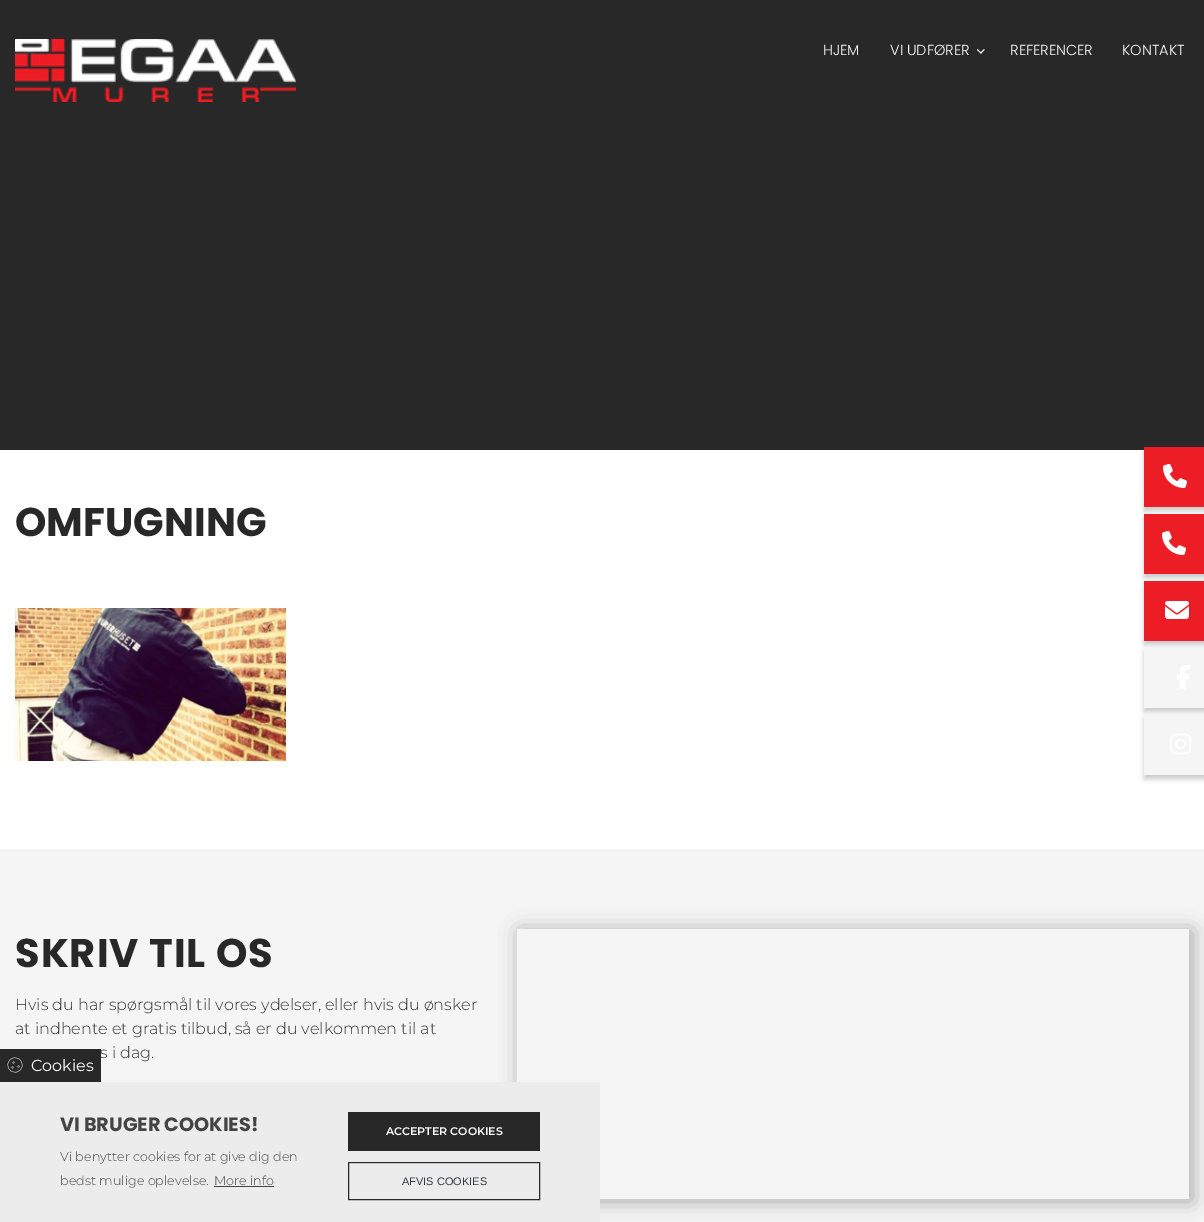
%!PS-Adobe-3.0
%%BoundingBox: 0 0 1204 1222
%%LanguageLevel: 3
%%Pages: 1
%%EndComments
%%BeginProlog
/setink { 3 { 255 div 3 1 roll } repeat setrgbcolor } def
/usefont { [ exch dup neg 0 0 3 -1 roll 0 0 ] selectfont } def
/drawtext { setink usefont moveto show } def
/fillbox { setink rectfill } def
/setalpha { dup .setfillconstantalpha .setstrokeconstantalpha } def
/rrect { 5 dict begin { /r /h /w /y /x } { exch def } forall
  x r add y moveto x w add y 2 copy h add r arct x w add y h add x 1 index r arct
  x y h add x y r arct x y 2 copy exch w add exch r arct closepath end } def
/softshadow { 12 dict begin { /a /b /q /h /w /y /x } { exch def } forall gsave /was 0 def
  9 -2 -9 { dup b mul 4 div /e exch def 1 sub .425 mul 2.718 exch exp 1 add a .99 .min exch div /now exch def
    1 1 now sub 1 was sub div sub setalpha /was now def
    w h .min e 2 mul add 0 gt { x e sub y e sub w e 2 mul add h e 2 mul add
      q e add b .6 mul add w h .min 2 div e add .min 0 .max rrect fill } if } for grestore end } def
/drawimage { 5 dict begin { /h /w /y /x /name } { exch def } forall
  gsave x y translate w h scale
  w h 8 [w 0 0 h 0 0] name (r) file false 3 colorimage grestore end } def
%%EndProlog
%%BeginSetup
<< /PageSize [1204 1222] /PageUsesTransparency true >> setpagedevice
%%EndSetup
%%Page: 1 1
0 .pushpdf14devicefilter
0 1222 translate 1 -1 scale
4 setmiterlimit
0 0 1204 1222 255 255 255 fillbox
0 0 1204 450 40 40 40 fillbox
(assets/img1.rgb) 15 39 281 63 drawimage
(HJEM) 823 55 /Poppins-Light 14.5 255 255 255 drawtext
(VI UDFØRER) 890 55 /Poppins-Light 14.5 255 255 255 drawtext
984.5 50 moveto 981 53.5 lineto 980 53 lineto 984 49 lineto closepath fill
981.5 53 moveto 981 53.5 lineto 977 50 lineto 977.5 49 lineto closepath fill
(REFERENCER) 1010 55 /Poppins-Light 14.5 255 255 255 drawtext
(KONTAKT) 1122 55 /Poppins-Light 14.5 255 255 255 drawtext
(OMFUGNING) 15 536 /Poppins-Bold 40 40 40 40 drawtext
0 0 0 setink
1144 451 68 60 0 2.5 0.2 softshadow
1144 447 60 60 237 29 38 fillbox
(assets/img2.rgb) 1163 464 24 24 drawimage
0 0 0 setink
1144 518 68 60 0 2.5 0.2 softshadow
1144 514 60 60 237 29 38 fillbox
(assets/img2.rgb) 1162 531 24 24 drawimage
0 0 0 setink
1144 585 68 60 0 2.5 0.2 softshadow
1144 581 60 60 237 29 38 fillbox
(assets/img3.rgb) 1165 601 24 18 drawimage
0 0 0 setink
1144 652 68 60 0 2.5 0.2 softshadow
1144 648 60 60 245 245 245 fillbox
(assets/img4.rgb) 1177 665 13 24 drawimage
0 0 0 setink
1144 719 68 60 0 2.5 0.2 softshadow
1144 715 60 60 245 245 245 fillbox
(assets/img5.rgb) 1170 733 21 22 drawimage
(assets/img6.rgb) 15 608 271 153 drawimage
0 849 1204 373 245 245 245 fillbox
40 40 40 setink
15 967 moveto 1 0 (SKRIV TIL OS) ashow
(Hvis du har spørgsmål til vores ydelser, eller hvis du ønsker) 15 1010 /Montserrat-Light 16 51 51 51 drawtext
(at indhente et gratis tilbud, så er du velkommen til at) 15 1034 /Montserrat-Light 16 51 51 51 drawtext
(s i dag.) 100 1058 /Montserrat-Light 16 51 51 51 drawtext
gsave
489 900 moveto 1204 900 lineto 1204 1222 lineto 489 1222 lineto closepath 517 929 moveto 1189 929 lineto 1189 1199 lineto 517 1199 lineto closepath eoclip newpath
0 0 0 setink
520 931 672 270 0 10 0.33 softshadow
grestore
0 1082 600 140 236 236 236 fillbox
0 1049 101 33 40 40 40 fillbox
(assets/img7.rgb) 7 1057 16 16 drawimage
(Cookies) 31 1071 /Montserrat-Regular 16 255 255 255 drawtext
(VI BRUGER COOKIES!) 60 1131 /Poppins-Bold 19.25 68 68 68 drawtext
(Vi benytter cookies for at give dig den) 60 1161 /Montserrat-Light 12.75 68 68 68 drawtext
(bedst mulige oplevelse.) 60 1185 /Montserrat-Light 12.75 68 68 68 drawtext
(More info) 214 1185 /Montserrat-Light 12.75 68 68 68 drawtext
214 1186 60 1 68 68 68 fillbox
348 1112 192 39 40 40 40 fillbox
(ACCEPTER COOKIES) 386 1135 /Montserrat-SemiBold 11 255 255 255 drawtext
349 1163 190 1 255 255 255 fillbox
40 40 40 setink
348.5 1162.5 191 37 rectstroke
(AFVIS COOKIES) 402 1185 /LiberationSans-Regular 11 52 58 64 drawtext
.poppdf14devicefilter showpage
%%EOF
